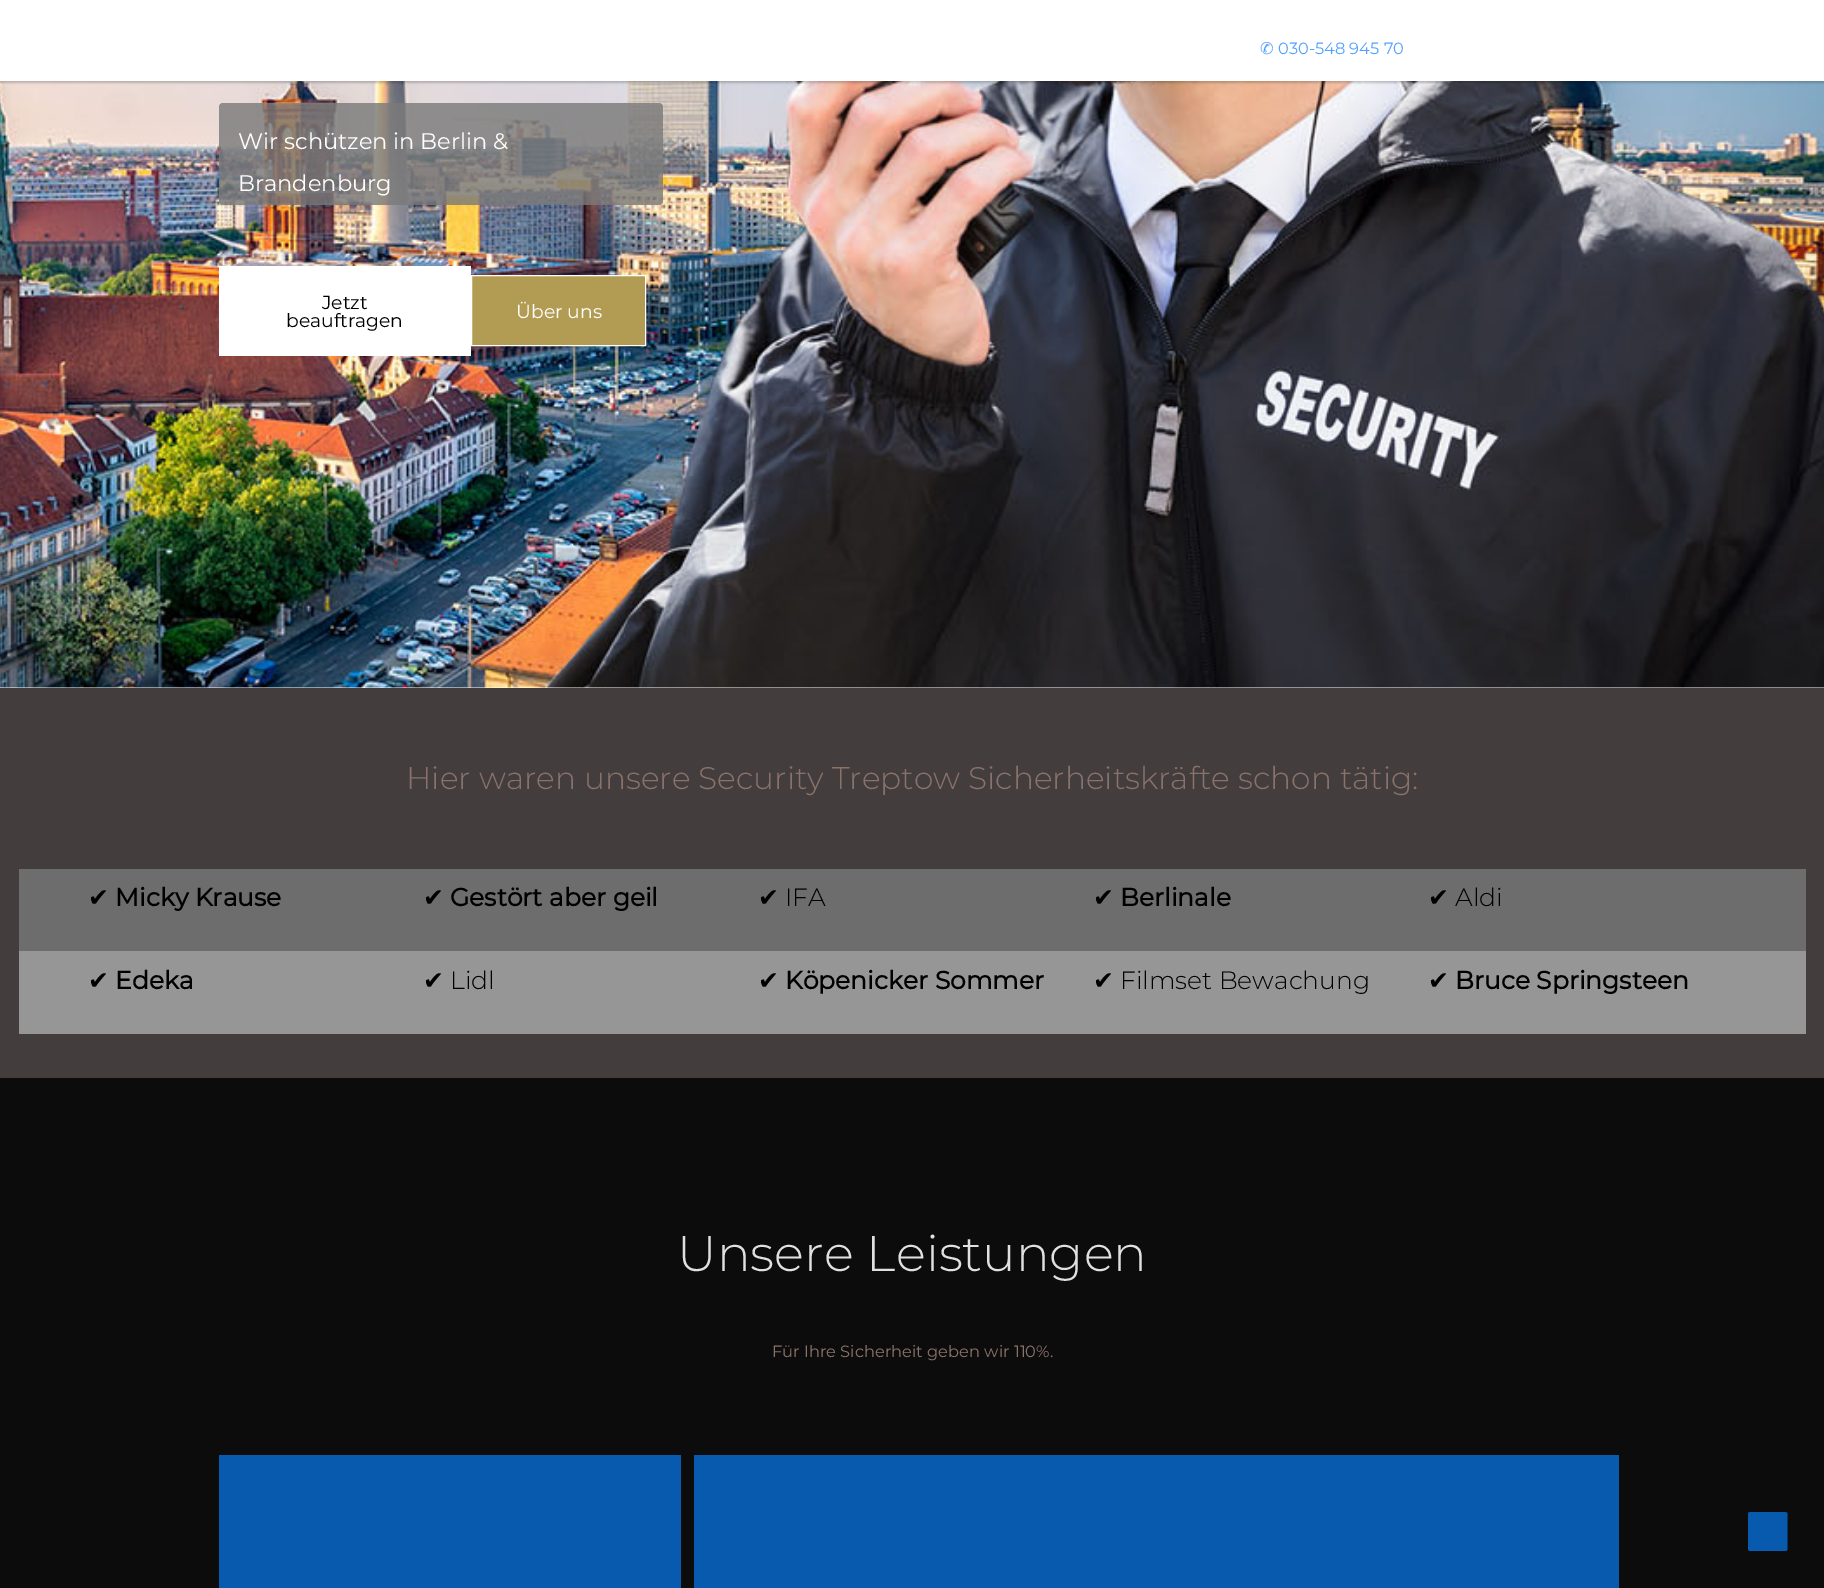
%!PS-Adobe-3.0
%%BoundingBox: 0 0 1824 1588
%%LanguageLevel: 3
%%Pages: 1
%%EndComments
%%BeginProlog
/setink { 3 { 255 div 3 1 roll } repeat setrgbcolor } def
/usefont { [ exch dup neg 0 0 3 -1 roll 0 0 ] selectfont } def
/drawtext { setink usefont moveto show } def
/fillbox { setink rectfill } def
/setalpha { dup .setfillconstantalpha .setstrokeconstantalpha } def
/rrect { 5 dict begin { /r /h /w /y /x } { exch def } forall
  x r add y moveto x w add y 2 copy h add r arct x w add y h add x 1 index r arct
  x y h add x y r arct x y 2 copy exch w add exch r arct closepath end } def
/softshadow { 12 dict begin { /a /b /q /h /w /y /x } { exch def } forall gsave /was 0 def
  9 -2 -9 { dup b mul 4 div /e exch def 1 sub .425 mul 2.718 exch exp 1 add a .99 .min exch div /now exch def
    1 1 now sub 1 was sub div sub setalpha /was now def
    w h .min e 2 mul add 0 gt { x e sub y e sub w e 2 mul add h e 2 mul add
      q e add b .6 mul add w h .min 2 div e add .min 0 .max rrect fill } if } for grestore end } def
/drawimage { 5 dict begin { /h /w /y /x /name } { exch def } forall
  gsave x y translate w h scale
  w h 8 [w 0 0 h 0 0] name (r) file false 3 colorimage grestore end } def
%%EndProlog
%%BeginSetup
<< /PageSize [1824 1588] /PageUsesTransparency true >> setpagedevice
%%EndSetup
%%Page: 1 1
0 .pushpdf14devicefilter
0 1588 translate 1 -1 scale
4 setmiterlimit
0 0 1824 1588 255 255 255 fillbox
(assets/img1.rgb) 0 81 1824 607 drawimage
0 0 0 setink
0 1 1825 82 0 1 0.2 softshadow
0 0 1824 81 255 255 255 fillbox
(✆) 1260 54 /DejaVuSans-Regular 16.25 83 160 255 drawtext
(030-548 945 70) 1278 54 /Montserrat-Regular 16.25 83 160 255 drawtext
0.81 setalpha
122 122 122 setink
219 103 444 102 4 rrect fill
1 setalpha
(Wir schützen in Berlin &) 238 149 /Montserrat-Regular 22.5 255 255 255 drawtext
(Brandenburg) 238 191 /Montserrat-Regular 22.5 255 255 255 drawtext
219 266 252 90 255 255 255 fillbox
(Jetzt) 322 309 /Montserrat-Regular 18.75 0 0 0 drawtext
(beauftragen) 286 327 /Montserrat-Regular 18.75 0 0 0 drawtext
178 156 83 setink
471.5 275.5 moveto 645.5 275.5 lineto 645.5 345.5 lineto 471.5 345.5 lineto closepath gsave fill grestore
255 255 255 setink
stroke
(Über uns) 516 318 /Montserrat-Regular 18.75 255 255 255 drawtext
0 688 1824 390 67 61 61 fillbox
(Hier waren unsere Security Treptow Sicherheitskräfte schon tätig:) 406 789 /Montserrat-Light 31.25 137 114 106 drawtext
19 869 1787 82 109 109 109 fillbox
(✔) 88 906 /DejaVuSans-Regular 25 0 0 0 drawtext
(Micky Krause) 115 906 /Montserrat-Bold 25 0 0 0 drawtext
(✔) 423 906 /DejaVuSans-Regular 25 0 0 0 drawtext
(Gestört aber geil) 450 906 /Montserrat-Bold 25 0 0 0 drawtext
(✔) 758 906 /DejaVuSans-Regular 25 0 0 0 drawtext
(IFA) 785 906 /Montserrat-Light 25 0 0 0 drawtext
(✔) 1093 906 /DejaVuSans-Regular 25 0 0 0 drawtext
(Berlinale) 1120 906 /Montserrat-Bold 25 0 0 0 drawtext
(✔) 1428 906 /DejaVuSans-Regular 25 0 0 0 drawtext
(Aldi) 1455 906 /Montserrat-Light 25 0 0 0 drawtext
19 951 1787 83 150 150 150 fillbox
(✔) 88 989 /DejaVuSans-Regular 25 0 0 0 drawtext
(Edeka) 115 989 /Montserrat-Bold 25 0 0 0 drawtext
(✔) 423 989 /DejaVuSans-Regular 25 0 0 0 drawtext
(Lidl) 450 989 /Montserrat-Light 25 0 0 0 drawtext
(✔) 758 989 /DejaVuSans-Regular 25 0 0 0 drawtext
(Köpenicker Sommer) 785 989 /Montserrat-Bold 25 0 0 0 drawtext
(✔) 1093 989 /DejaVuSans-Regular 25 0 0 0 drawtext
(Filmset Bewachung) 1120 989 /Montserrat-Light 25 0 0 0 drawtext
(✔) 1428 989 /DejaVuSans-Regular 25 0 0 0 drawtext
(Bruce Springsteen) 1455 989 /Montserrat-Bold 25 0 0 0 drawtext
0 1078 1824 510 12 12 12 fillbox
(Unsere Leistungen) 677 1271 /Montserrat-Light 50 224 224 224 drawtext
(Für Ihre Sicherheit geben wir 110%.) 772 1357 /Montserrat-Regular 16.25 137 114 106 drawtext
219 1455 462 133 7 90 174 fillbox
694 1455 925 133 7 90 174 fillbox
1785 1551 moveto 1750.5 1551 lineto 1749 1551 1748 1550 1748 1549 curveto 1748 1514.5 lineto 1748 1513 1749 1512 1750.5 1512 curveto 1785 1512 lineto 1786.5 1512 1787.5 1513 1787.5 1514.5 curveto 1787.5 1549 lineto 1787.5 1550 1786.5 1551 1785 1551 curveto closepath fill
.poppdf14devicefilter showpage
%%EOF
